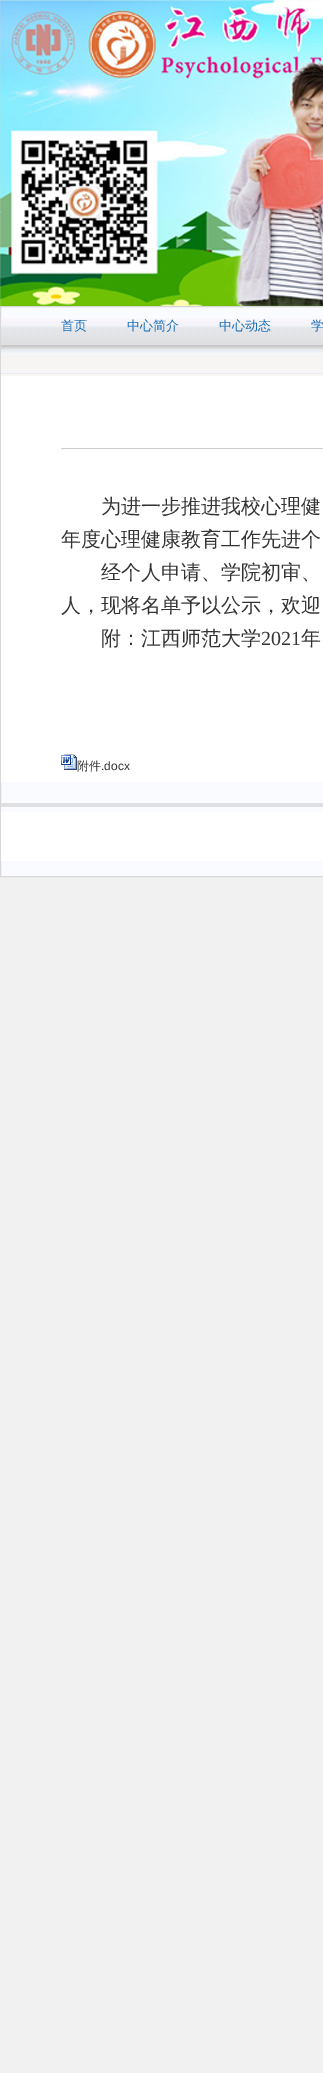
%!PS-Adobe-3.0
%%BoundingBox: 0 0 323 2073
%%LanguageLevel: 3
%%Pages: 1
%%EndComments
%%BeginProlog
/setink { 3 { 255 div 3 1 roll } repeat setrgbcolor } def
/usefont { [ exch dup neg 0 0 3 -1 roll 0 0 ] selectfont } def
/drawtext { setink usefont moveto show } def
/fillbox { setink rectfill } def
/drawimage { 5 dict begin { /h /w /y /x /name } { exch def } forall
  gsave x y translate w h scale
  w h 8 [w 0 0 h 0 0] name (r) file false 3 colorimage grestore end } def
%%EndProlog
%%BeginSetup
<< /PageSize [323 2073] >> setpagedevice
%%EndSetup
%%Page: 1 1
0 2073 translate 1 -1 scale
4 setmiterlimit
0 0 323 2073 241 241 241 fillbox
(assets/img1.rgb) 0 0 323 306 drawimage
250 251 254 setink
0.5 306.5 moveto 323.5 306.5 lineto 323.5 876.5 lineto 0.5 876.5 lineto closepath gsave fill grestore
215 215 215 setink
stroke
(assets/img2.rgb) 1 318 20 27 drawimage
(assets/img3.rgb) 21 318 302 27 drawimage
(首页) 61 330 /WenQuanYiZenHei-Medium 13 25 109 182 drawtext
(中心简介) 127 330 /WenQuanYiZenHei-Medium 13 25 109 182 drawtext
(中心动态) 219 330 /WenQuanYiZenHei-Medium 13 25 109 182 drawtext
(学) 311 330 /WenQuanYiZenHei-Medium 13 25 109 182 drawtext
(assets/img4.rgb) 1 345 322 31 drawimage
(assets/img5.rgb) 1 346 321 6 drawimage
1 376 322 406 255 255 255 fillbox
61 448 262 1 204 204 204 fillbox
(为进一步推进我校心理健) 101 513 /WenQuanYiZenHei-Medium 20 52 52 52 drawtext
(年度心理健康教育工作先进个) 61 546 /WenQuanYiZenHei-Medium 20 52 52 52 drawtext
(经个人申请、学院初审、) 101 579 /WenQuanYiZenHei-Medium 20 52 52 52 drawtext
(人，现将名单予以公示，欢迎) 61 612 /WenQuanYiZenHei-Medium 20 52 52 52 drawtext
(附：江西师范大学) 101 645 /WenQuanYiZenHei-Medium 20 52 52 52 drawtext
(2021) 261 645 /LiberationSerif-Regular 20 52 52 52 drawtext
(年) 301 645 /WenQuanYiZenHei-Medium 20 52 52 52 drawtext
(assets/img6.rgb) 61 754 16 16 drawimage
(附件) 77 770 /WenQuanYiZenHei-Medium 12 52 52 52 drawtext
(.docx) 101 770 /LiberationSans-Regular 12 52 52 52 drawtext
1 812 322 49 255 255 255 fillbox
(assets/img7.rgb) 1 802 322 10 drawimage
showpage
%%EOF
